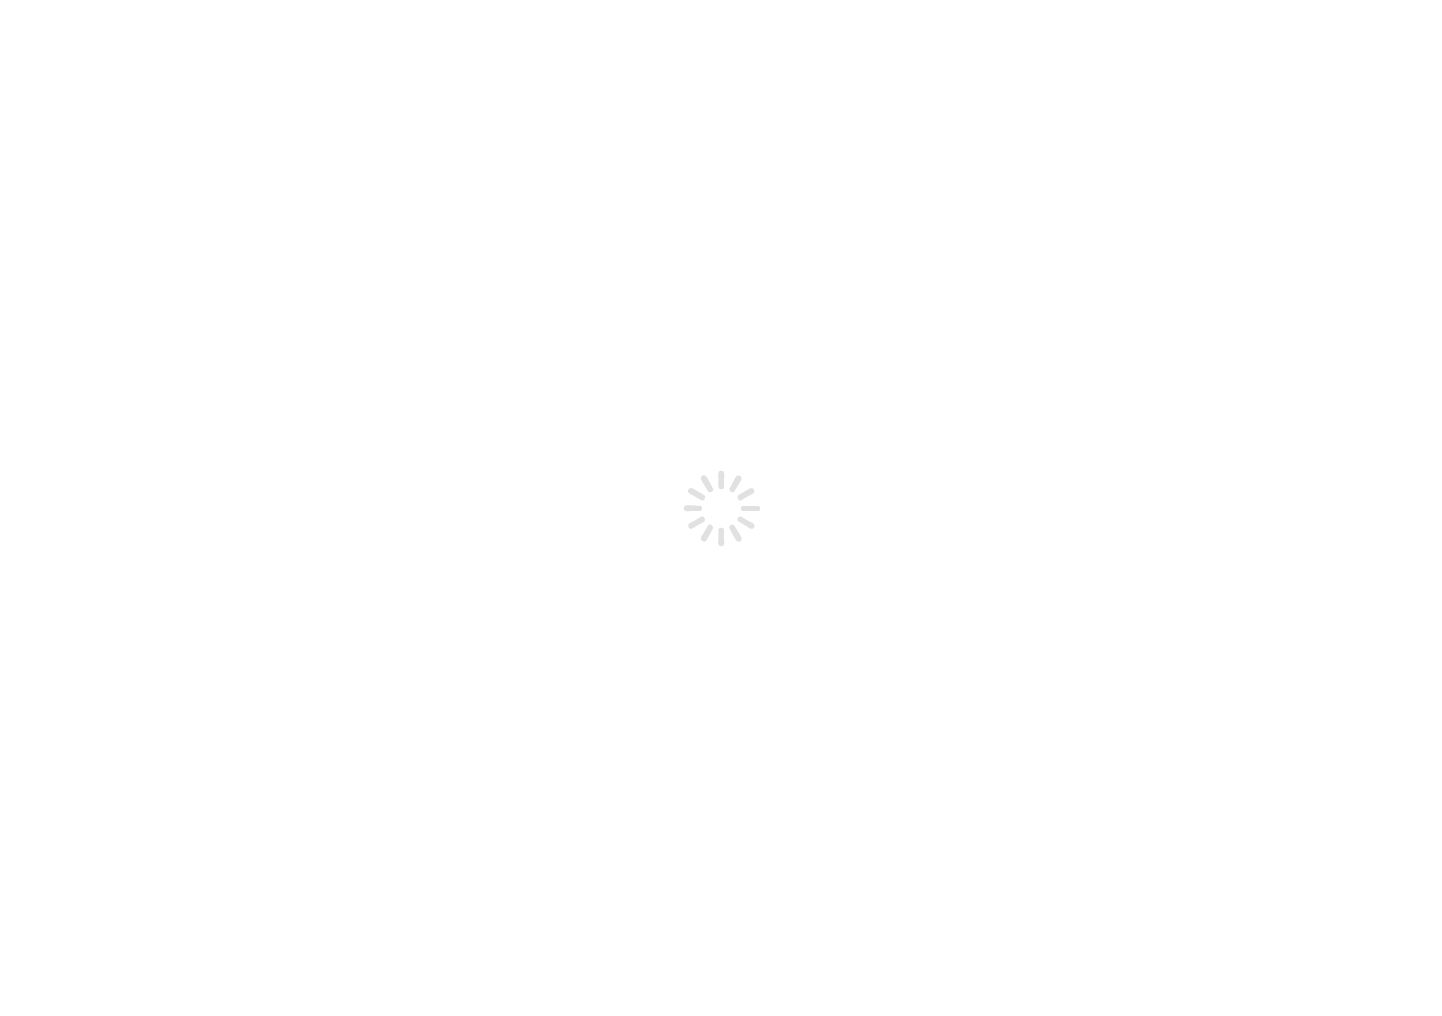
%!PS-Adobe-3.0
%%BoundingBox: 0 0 1442 1016
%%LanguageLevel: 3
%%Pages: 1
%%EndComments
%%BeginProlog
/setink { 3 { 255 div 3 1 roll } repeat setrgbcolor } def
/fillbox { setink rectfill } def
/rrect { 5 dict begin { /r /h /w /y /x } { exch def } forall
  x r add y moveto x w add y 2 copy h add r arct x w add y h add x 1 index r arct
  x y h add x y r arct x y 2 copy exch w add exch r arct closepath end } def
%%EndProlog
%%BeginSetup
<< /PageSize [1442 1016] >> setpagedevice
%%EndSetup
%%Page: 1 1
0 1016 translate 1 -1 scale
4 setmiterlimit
0 0 1442 1016 255 255 255 fillbox
225 225 225 setink
741.5 517 moveto 749 521.5 lineto 751.5 522.5 756.5 524.5 753.5 528 curveto 751.5 530 748 527 746.5 526 curveto 738 521 lineto 736.5 519 739 515.5 741.5 517 curveto closepath fill
734.5 526 moveto 739 533.5 lineto 740.5 536 743.5 540 739.5 541.5 curveto 736.5 542 735 538 734 536.5 curveto 729.5 528 lineto 729 525 733 523.5 734.5 526 curveto closepath 724 530.5 moveto 724 539 lineto 724 542 725 547 720.5 546 curveto 717.5 545.5 718.5 541 718.5 539 curveto 718.5 529.5 lineto 719.5 527 724 527.5 724 530.5 curveto closepath 712.5 529 moveto 708.5 536.5 lineto 707 539 705.5 543.5 702 540.5 curveto 699.5 538.5 702.5 535.5 703.5 533.5 curveto 708.5 525 lineto 710.5 523.5 714 526.5 712.5 529 curveto closepath fill
703.5 522 moveto 696 526 lineto 693.5 527.5 690 531 688.5 526.5 curveto 687.5 523.5 691.5 522.5 693.5 521.5 curveto 702 516.5 lineto 704.5 516.5 706 520.5 703.5 522 curveto closepath 699.5 511 moveto 690.5 511 lineto 688 511 683 512 684 507.5 curveto 684.5 504.5 688.5 505.5 690.5 505.5 curveto 700.5 506 lineto 703 507 702 511 699.5 511 curveto closepath 701 500 moveto 693.5 495.5 lineto 691 494 686 492.5 689 489 curveto 691 487 694.5 489.5 696 490.5 curveto 704.5 495.5 lineto 706 498 703.5 501.5 701 500 curveto closepath fill
708 491 moveto 703.5 483.5 lineto 702 481 699 477 703 475.5 curveto 706 474.5 707.5 479 708.5 480.5 curveto 713 489 lineto 713.5 491.5 709.5 493.5 708 491 curveto closepath 718.5 486.5 moveto 718.5 478 lineto 718.5 475 717.5 470 722 471 curveto 725 471.5 724 476 724 478 curveto 724 487.5 lineto 723 490 718.5 489.5 718.5 486.5 curveto closepath 730 488 moveto 734 480.5 lineto 735.5 478 737 473.5 740.5 476.5 curveto 743 478.5 740 481.5 739 483.5 curveto 734 491.5 lineto 732 493.5 728.5 490.5 730 488 curveto closepath fill
739 495 moveto 746.5 490.5 lineto 749 489.5 752.5 486 754 490.5 curveto 755 493.5 751 494.5 749 495.5 curveto 740.5 500.5 lineto 738 500.5 736.5 496.5 739 495 curveto closepath fill
741 506 19 5 2.5 rrect fill
showpage
%%EOF
